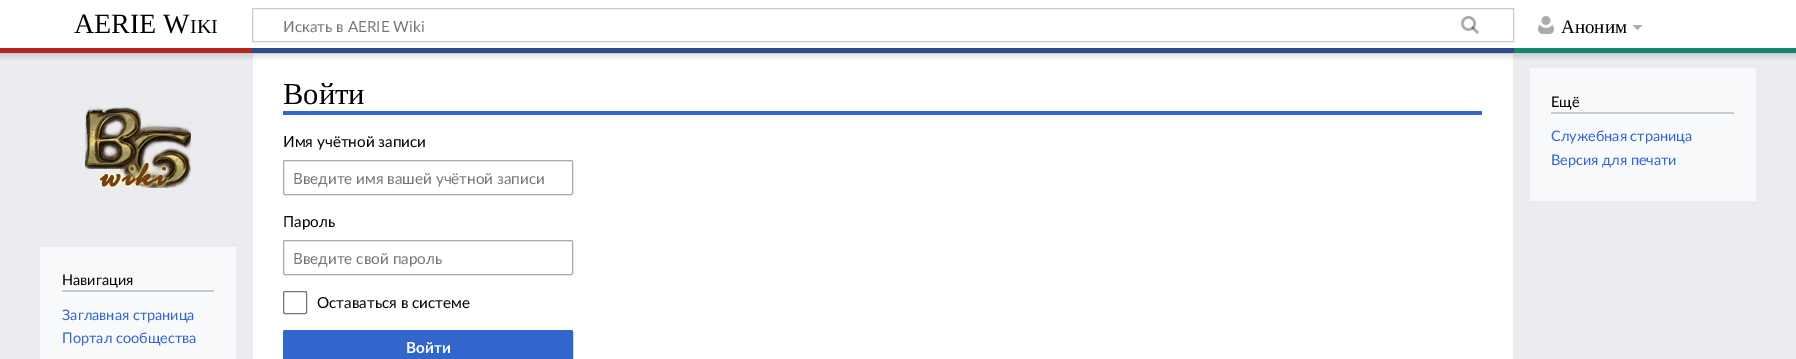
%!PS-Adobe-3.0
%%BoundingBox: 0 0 1796 359
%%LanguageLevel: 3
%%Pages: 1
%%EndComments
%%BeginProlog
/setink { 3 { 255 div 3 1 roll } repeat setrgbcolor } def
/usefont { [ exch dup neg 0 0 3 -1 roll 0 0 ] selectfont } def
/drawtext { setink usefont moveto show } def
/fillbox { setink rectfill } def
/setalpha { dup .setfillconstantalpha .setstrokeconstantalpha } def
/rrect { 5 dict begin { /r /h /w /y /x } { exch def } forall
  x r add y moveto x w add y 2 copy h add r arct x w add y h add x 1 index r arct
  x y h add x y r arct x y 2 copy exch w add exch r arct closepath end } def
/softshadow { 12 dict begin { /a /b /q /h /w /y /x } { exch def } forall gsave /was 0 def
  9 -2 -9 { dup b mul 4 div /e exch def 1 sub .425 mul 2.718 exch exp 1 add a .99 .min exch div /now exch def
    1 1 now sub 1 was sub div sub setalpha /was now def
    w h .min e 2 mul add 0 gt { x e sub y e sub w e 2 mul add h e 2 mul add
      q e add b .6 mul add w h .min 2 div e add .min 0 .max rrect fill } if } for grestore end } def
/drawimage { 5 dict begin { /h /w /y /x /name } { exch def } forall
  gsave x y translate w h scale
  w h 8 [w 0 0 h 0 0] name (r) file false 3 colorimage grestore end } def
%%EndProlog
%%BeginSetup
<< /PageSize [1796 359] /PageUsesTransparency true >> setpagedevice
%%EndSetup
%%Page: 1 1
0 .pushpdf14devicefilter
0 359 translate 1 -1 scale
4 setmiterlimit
0 0 1796 359 234 236 240 fillbox
253 54 1260 305 255 255 255 fillbox
0 0 0 setink
0 48 1796 5 0 1 0.2 softshadow
-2 49 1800 9 0 1.5 0.07 softshadow
0 0 1796 48 255 255 255 fillbox
(AERIE W) 74 33 /LiberationSerif-Regular 28 0 0 0 drawtext
(IKI) 190 33 /LiberationSerif-Regular 20 0 0 0 drawtext
200 204 209 setink
252.5 8.5 1261 33 rectstroke
(Искать в AERIE Wiki) 283 32 /Lato-Regular 15.25 117 117 117 drawtext
(assets/img1.rgb) 1461 16 18 18 drawimage
(assets/img2.rgb) 1538 16 16 18 drawimage
(Аноним) 1561 33 /LiberationSerif-Regular 19 0 0 0 drawtext
171 171 171 setink
1642.5 25 moveto 1637.5 30 lineto 1632.5 25 lineto closepath fill
0 48 252 5 179 36 36 fillbox
252 48 1262 5 42 75 141 fillbox
1514 48 282 5 20 134 109 fillbox
283 111 1199 4 51 102 204 fillbox
(Войти) 283 104 /LiberationSerif-Regular 30.5 0 0 0 drawtext
(Имя учётной записи) 283 147 /Lato-Regular 15.25 0 0 0 drawtext
162 169 177 setink
283.5 160.5 289 34 1.5 rrect stroke
(Введите имя вашей учётной записи) 293 184 /Lato-Regular 15.25 114 119 125 drawtext
(Пароль) 283 227 /Lato-Regular 15.25 0 0 0 drawtext
162 169 177 setink
283.5 240.5 289 34 1.5 rrect stroke
(Введите свой пароль) 293 264 /Lato-Regular 15.25 114 119 125 drawtext
283.5 291.5 23 22 1.5 rrect stroke
(Оставаться в системе) 317 308 /Lato-Regular 15.25 0 0 0 drawtext
51 102 204 setink
283.5 330.5 289 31 1.5 rrect gsave fill grestore
stroke
(Войти) 406 353 /Lato-Bold 15.25 255 255 255 drawtext
1530 68 226 133 248 249 250 fillbox
1551 112 183 2 200 204 209 fillbox
(Ещё) 1551 107 /Lato-Regular 14.5 0 0 0 drawtext
(Служебная страница) 1551 141 /Lato-Regular 14.5 51 102 204 drawtext
(Версия для печати) 1551 165 /Lato-Regular 14.5 51 102 204 drawtext
(assets/img3.rgb) 85 107 106 82 drawimage
40 247 196 112 248 249 250 fillbox
62 290 152 2 200 204 209 fillbox
(Навигация) 62 285 /Lato-Regular 14.5 0 0 0 drawtext
(Заглавная страница) 62 320 /Lato-Regular 14.5 51 102 204 drawtext
(Портал сообщества) 62 343 /Lato-Regular 14.5 51 102 204 drawtext
.poppdf14devicefilter showpage
%%EOF
